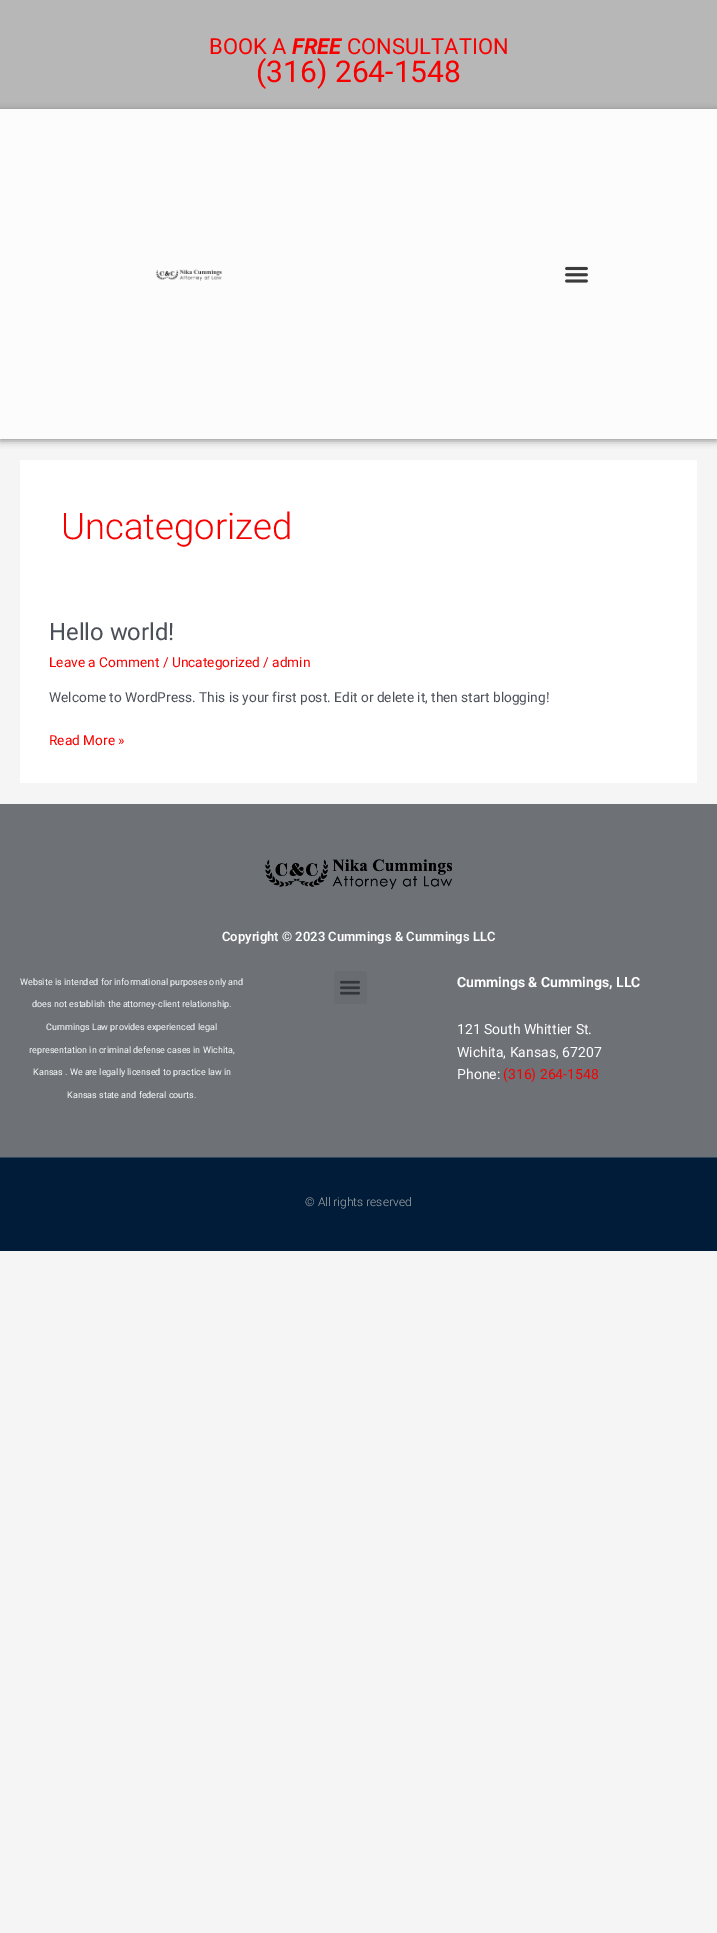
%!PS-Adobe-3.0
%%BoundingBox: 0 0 717 1933
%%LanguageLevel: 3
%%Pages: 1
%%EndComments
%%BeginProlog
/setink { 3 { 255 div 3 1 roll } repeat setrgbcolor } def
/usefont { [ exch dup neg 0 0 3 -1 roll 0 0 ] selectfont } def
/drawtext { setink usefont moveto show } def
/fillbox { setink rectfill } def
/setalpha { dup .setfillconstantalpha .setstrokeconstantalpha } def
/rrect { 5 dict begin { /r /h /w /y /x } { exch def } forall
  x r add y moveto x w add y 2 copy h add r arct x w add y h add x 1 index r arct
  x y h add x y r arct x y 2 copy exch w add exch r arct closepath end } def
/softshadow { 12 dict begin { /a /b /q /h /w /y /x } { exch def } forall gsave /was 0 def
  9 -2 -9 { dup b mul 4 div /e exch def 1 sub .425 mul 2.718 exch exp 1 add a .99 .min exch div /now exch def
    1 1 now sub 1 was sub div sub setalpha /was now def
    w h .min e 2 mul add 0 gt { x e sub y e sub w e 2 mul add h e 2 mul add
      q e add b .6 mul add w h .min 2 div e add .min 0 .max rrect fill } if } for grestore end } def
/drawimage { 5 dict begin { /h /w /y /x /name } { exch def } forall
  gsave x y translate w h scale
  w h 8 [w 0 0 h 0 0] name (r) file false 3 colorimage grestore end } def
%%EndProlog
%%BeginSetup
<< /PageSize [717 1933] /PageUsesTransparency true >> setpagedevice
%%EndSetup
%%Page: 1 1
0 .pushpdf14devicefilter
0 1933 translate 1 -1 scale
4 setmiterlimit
0 0 717 1933 245 245 245 fillbox
0 0 717 109 183 183 183 fillbox
(BOOK A) 209 54 /Roboto-Regular 22 247 0 0 drawtext
(FREE) 292 54 /Roboto-BoldItalic 22 247 0 0 drawtext
(CONSULTATION) 347 54 /Roboto-Regular 22 247 0 0 drawtext
(\(316\) 264-1548) 256 82 /Roboto-Regular 30 247 0 0 drawtext
0 0 0 setink
0 111 717 330 0 3.5 0.38 softshadow
0 109 717 330 252 252 252 fillbox
(assets/img1.rgb) 155 269 67 12 drawimage
(assets/img2.rgb) 565 266 23 17 drawimage
20 460 677 323 255 255 255 fillbox
(Uncategorized) 61 539 /Roboto-Light 36.5 247 0 0 drawtext
(Hello world!) 49 640 /Roboto-Regular 23.75 75 79 88 drawtext
(Leave a Comment / Uncategorized / admin) 49 667 /Roboto-Regular 13.7 247 0 0 drawtext
(Welcome to WordPress. This is your first post. Edit or delete it, then start blogging!) 49 702 /Roboto-Regular 13.7 75 79 88 drawtext
(Read More ») 49 745 /Roboto-Regular 13.7 247 0 0 drawtext
0 804 717 353 110 114 119 fillbox
(assets/img3.rgb) 265 859 187 31 drawimage
(Copyright © 2023 Cummings & Cummings LLC) 222 941 /Roboto-SemiBold 13 255 255 255 drawtext
(Website is intended for informational purposes only and) 20 985 /Roboto-Regular 9 255 255 255 drawtext
(does not establish the attorney-client relationship.) 32 1007 /Roboto-Regular 9 255 255 255 drawtext
(Cummings Law provides experienced legal) 46 1030 /Roboto-Regular 9 255 255 255 drawtext
(representation in criminal defense cases in Wichita,) 29 1053 /Roboto-Regular 9 255 255 255 drawtext
(Kansas . We are legally licensed to practice law in) 33 1075 /Roboto-Regular 9 255 255 255 drawtext
(Kansas state and federal courts.) 67 1098 /Roboto-Regular 9 255 255 255 drawtext
105 108 113 setink
334 971 33 33 3 rrect fill
(assets/img4.rgb) 340 980 20 15 drawimage
(Cummings & Cummings, LLC) 457 987 /Roboto-Bold 14 255 255 255 drawtext
(121 South Whittier St.) 457 1034 /Roboto-Regular 14 255 255 255 drawtext
(Wichita, Kansas, 67207) 457 1057 /Roboto-Regular 14 255 255 255 drawtext
(Phone:) 457 1079 /Roboto-Regular 14 255 255 255 drawtext
(\(316\) 264-1548) 503 1079 /Roboto-Regular 14 247 0 0 drawtext
0 1158 717 93 0 28 56 fillbox
0 1157 717 1 48 71 94 fillbox
(© All rights reserved) 305 1206 /Roboto-Light 12 173 173 173 drawtext
.poppdf14devicefilter showpage
%%EOF
